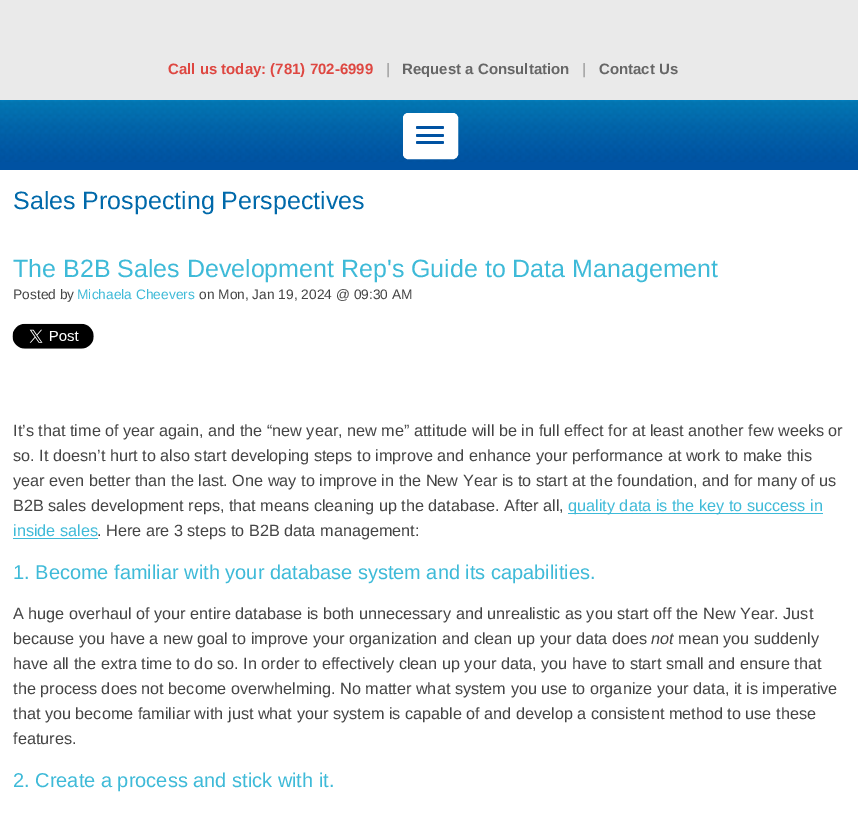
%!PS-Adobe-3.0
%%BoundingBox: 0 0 858 816
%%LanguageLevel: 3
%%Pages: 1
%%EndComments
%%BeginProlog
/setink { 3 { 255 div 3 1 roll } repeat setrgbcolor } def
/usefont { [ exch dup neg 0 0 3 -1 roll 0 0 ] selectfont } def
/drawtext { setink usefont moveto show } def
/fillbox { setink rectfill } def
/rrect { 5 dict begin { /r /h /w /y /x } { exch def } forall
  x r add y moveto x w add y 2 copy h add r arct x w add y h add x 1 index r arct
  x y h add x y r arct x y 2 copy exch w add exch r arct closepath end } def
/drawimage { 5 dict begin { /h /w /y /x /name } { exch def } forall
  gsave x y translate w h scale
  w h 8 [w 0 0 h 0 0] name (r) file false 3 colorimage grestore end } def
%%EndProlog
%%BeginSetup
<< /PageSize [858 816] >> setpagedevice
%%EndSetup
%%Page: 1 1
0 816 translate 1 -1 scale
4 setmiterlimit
0 0 858 816 234 234 234 fillbox
(Call us today: \(781\) 702-6999) 168 74 /LiberationSans-Bold 15 222 71 65 drawtext
(|) 386 74 /LiberationSans-Bold 15 170 170 170 drawtext
(Request a Consultation) 402 74 /LiberationSans-Bold 15 102 102 102 drawtext
(|) 582 74 /LiberationSans-Bold 15 170 170 170 drawtext
(Contact Us) 599 74 /LiberationSans-Bold 15 102 102 102 drawtext
0 162 858 8 0 82 162 fillbox
(assets/img1.rgb) 0 100 858 62 drawimage
255 255 255 setink
403.5 113.5 54 45 4.5 rrect gsave fill grestore
stroke
0 82 162 setink
416 134 28 3 1.5 rrect fill
416 126 28 3 1.5 rrect fill
416 141 28 3 1.5 rrect fill
0 170 858 646 255 255 255 fillbox
(Sales Prospecting Perspectives) 13 209 /LiberationSans-Regular 25 0 105 170 drawtext
(The B2B Sales Development Rep's Guide to Data Management) 13 277 /LiberationSans-Regular 25 62 186 216 drawtext
(Posted by) 13 299 /LiberationSans-Regular 13.75 68 68 68 drawtext
(Michaela Cheevers) 77 299 /LiberationSans-Regular 13.75 62 186 216 drawtext
(on Mon, Jan 19, 2024 @ 09:30 AM) 199 299 /LiberationSans-Regular 13.75 68 68 68 drawtext
(assets/img2.rgb) 12 323 82 26 drawimage
(It’s that time of year again, and the “new year, new me” attitude will be in full effect for at least another few weeks or) 13 436 /LiberationSans-Regular 16.25 68 68 68 drawtext
(so. It doesn’t hurt to also start developing steps to improve and enhance your performance at work to make this) 13 461 /LiberationSans-Regular 16.25 68 68 68 drawtext
(year even better than the last. One way to improve in the New Year is to start at the foundation, and for many of us) 13 486 /LiberationSans-Regular 16.25 68 68 68 drawtext
(B2B sales development reps, that means cleaning up the database. After all,) 13 511 /LiberationSans-Regular 16.25 68 68 68 drawtext
568 513 255 1 62 186 216 fillbox
(quality data is the key to success in) 568 511 /LiberationSans-Regular 16.25 62 186 216 drawtext
(inside sales) 13 536 /LiberationSans-Regular 16.25 62 186 216 drawtext
13 538 85 1 62 186 216 fillbox
(. Here are 3 steps to B2B data management:) 97 536 /LiberationSans-Regular 16.25 68 68 68 drawtext
(1. Become familiar with your database system and its capabilities.) 13 579 /LiberationSans-Regular 20 62 186 216 drawtext
(A huge overhaul of your entire database is both unnecessary and unrealistic as you start off the New Year. Just) 13 619 /LiberationSans-Regular 16.25 68 68 68 drawtext
(because you have a new goal to improve your organization and clean up your data does) 13 644 /LiberationSans-Regular 16.25 68 68 68 drawtext
(not) 651 644 /LiberationSans-Italic 16.25 68 68 68 drawtext
(mean you suddenly) 678 644 /LiberationSans-Regular 16.25 68 68 68 drawtext
(have all the extra time to do so. In order to effectively clean up your data, you have to start small and ensure that) 13 669 /LiberationSans-Regular 16.25 68 68 68 drawtext
(the process does not become overwhelming. No matter what system you use to organize your data, it is imperative) 13 694 /LiberationSans-Regular 16.25 68 68 68 drawtext
(that you become familiar with just what your system is capable of and develop a consistent method to use these) 13 719 /LiberationSans-Regular 16.25 68 68 68 drawtext
(features.) 13 744 /LiberationSans-Regular 16.25 68 68 68 drawtext
(2. Create a process and stick with it.) 13 787 /LiberationSans-Regular 20 62 186 216 drawtext
showpage
%%EOF
